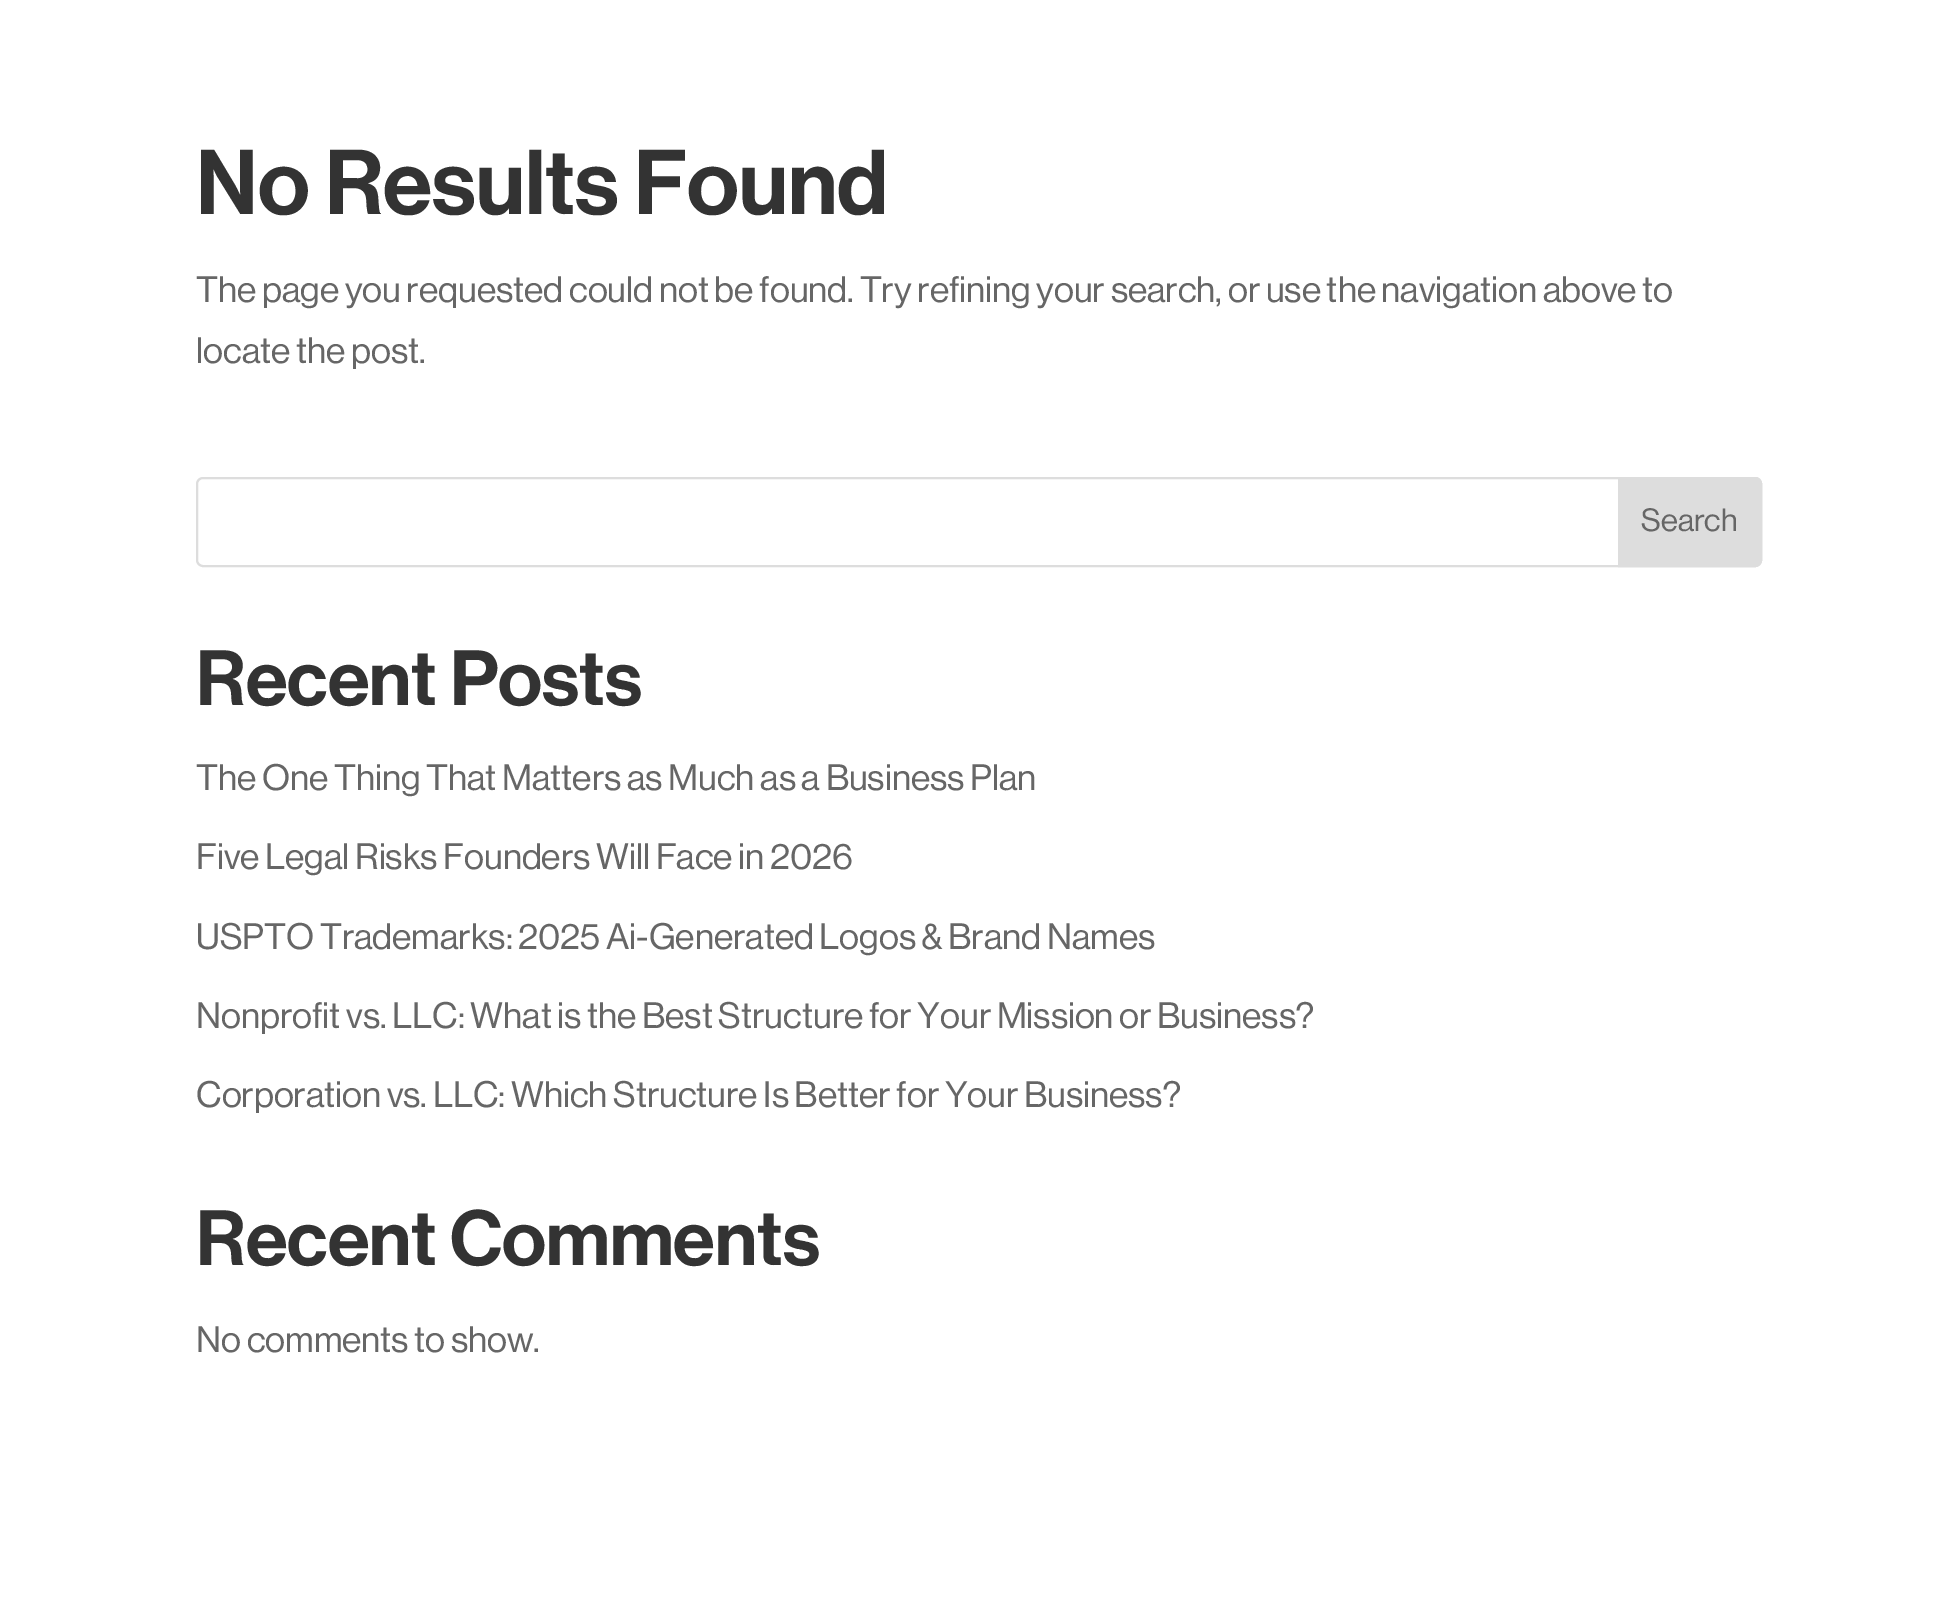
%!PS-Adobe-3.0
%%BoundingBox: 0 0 1957 1620
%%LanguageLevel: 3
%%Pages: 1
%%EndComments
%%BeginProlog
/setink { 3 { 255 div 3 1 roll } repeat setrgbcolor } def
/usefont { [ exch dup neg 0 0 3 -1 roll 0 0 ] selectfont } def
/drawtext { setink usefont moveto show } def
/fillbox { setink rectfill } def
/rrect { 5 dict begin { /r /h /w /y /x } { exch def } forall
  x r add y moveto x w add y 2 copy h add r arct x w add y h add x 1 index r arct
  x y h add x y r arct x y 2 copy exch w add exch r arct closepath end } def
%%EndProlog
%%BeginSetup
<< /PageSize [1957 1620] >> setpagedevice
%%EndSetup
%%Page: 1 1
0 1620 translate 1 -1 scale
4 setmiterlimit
0 0 1957 1620 255 255 255 fillbox
(No Results Found) 196 214 /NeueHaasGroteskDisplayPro-SemiBold 90 51 51 51 drawtext
(The page you requested could not be found. Try refining your search, or use the navigation above to) 196 302 /NeueHaasGroteskDisplayPro-Regular 36 102 102 102 drawtext
(locate the post.) 196 363 /NeueHaasGroteskDisplayPro-Regular 36 102 102 102 drawtext
221 221 221 setink
2 setlinewidth
197 478 1564 88 6 rrect stroke
1619 478 moveto 1755 478 lineto 1758.5 478 1761 480.5 1761 484 curveto 1761 560 lineto 1761 563.5 1758.5 566 1755 566 curveto 1619 566 lineto closepath gsave fill grestore
stroke
(Search) 1641 531 /NeueHaasGroteskDisplayPro-Regular 31.5 102 102 102 drawtext
(Recent Posts) 196 705 /NeueHaasGroteskDisplayPro-SemiBold 76.5 51 51 51 drawtext
(The One Thing That Matters as Much as a Business Plan) 196 790 /NeueHaasGroteskDisplayPro-Regular 36 102 102 102 drawtext
(Five Legal Risks Founders Will Face in 2026) 196 869 /NeueHaasGroteskDisplayPro-Regular 36 102 102 102 drawtext
(USPTO Trademarks: 2025 Ai-Generated Logos & Brand Names) 196 949 /NeueHaasGroteskDisplayPro-Regular 36 102 102 102 drawtext
(Nonprofit vs. LLC: What is the Best Structure for Your Mission or Business?) 196 1028 /NeueHaasGroteskDisplayPro-Regular 36 102 102 102 drawtext
(Corporation vs. LLC: Which Structure Is Better for Your Business?) 196 1107 /NeueHaasGroteskDisplayPro-Regular 36 102 102 102 drawtext
(Recent Comments) 196 1265 /NeueHaasGroteskDisplayPro-SemiBold 76.5 51 51 51 drawtext
(No comments to show.) 196 1352 /NeueHaasGroteskDisplayPro-Regular 36 102 102 102 drawtext
showpage
%%EOF
